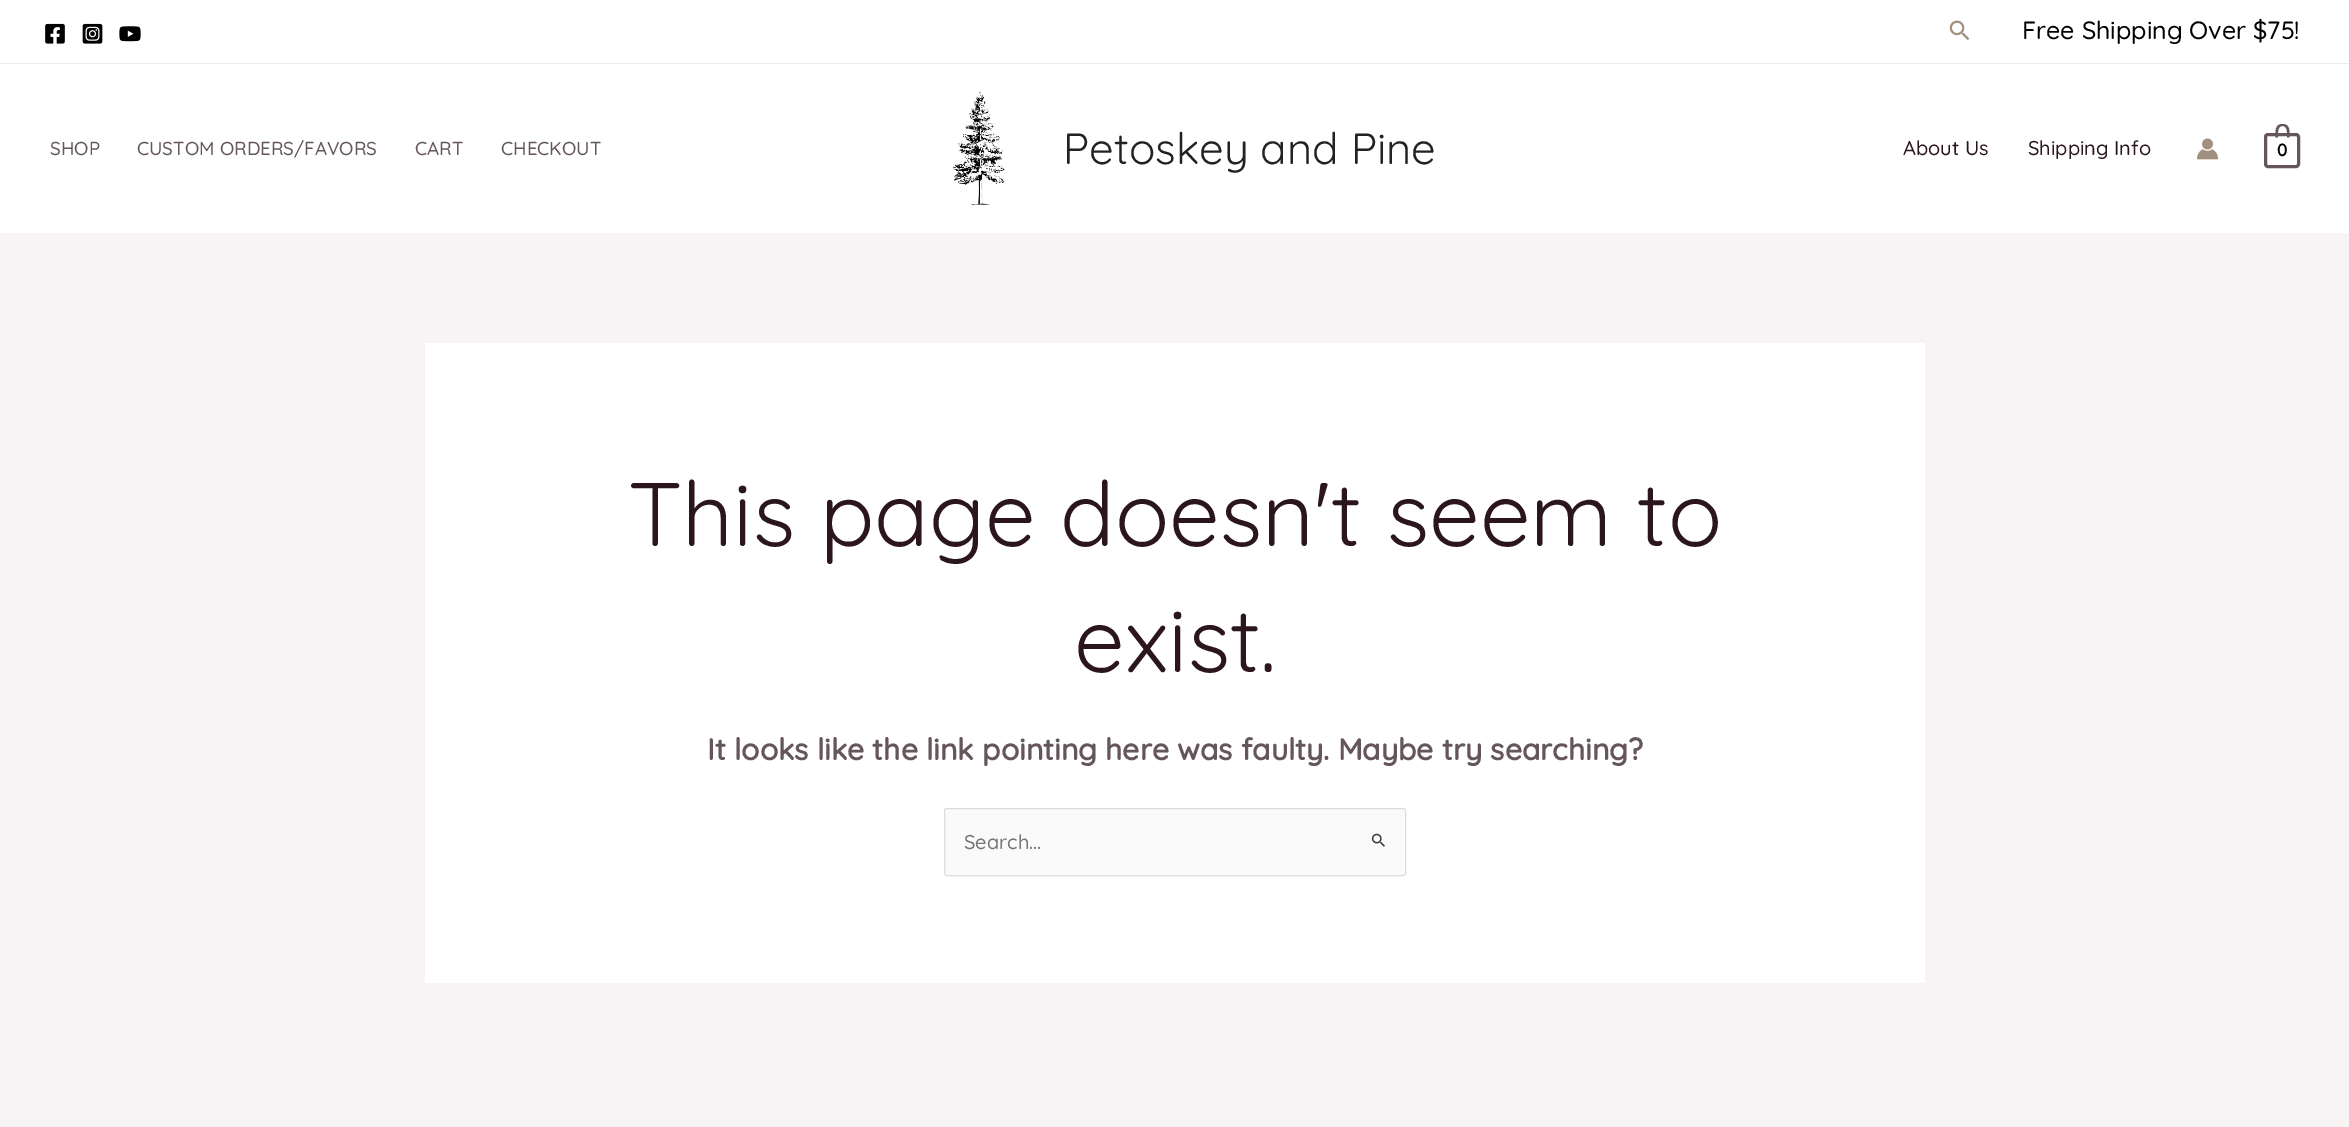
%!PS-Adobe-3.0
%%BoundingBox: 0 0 2349 1127
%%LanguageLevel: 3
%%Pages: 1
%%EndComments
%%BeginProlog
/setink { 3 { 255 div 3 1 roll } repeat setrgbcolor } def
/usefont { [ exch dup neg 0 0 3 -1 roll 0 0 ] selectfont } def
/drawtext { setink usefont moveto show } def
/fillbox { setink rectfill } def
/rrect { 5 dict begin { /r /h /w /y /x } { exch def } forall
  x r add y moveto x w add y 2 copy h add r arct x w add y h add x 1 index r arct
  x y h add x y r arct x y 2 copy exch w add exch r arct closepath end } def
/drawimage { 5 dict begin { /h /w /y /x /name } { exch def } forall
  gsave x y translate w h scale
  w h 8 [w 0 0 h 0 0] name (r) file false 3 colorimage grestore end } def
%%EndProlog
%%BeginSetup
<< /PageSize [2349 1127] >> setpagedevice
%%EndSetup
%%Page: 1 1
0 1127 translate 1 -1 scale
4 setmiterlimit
0 0 2349 1127 248 243 245 fillbox
0 0 2349 63 255 255 255 fillbox
0 63 2349 1 234 234 234 fillbox
(assets/img1.rgb) 45 23 20 21 drawimage
(assets/img2.rgb) 82 23 21 21 drawimage
(assets/img3.rgb) 119 26 22 16 drawimage
(assets/img4.rgb) 1949 20 20 21 drawimage
(Free Shipping Over $75!) 2022 39 /Quicksand-Medium 25 0 0 0 drawtext
0 64 2349 169 255 255 255 fillbox
(SHOP) 50 155 /Quicksand-Medium 18.75 100 86 89 drawtext
(CUSTOM ORDERS/FAVORS) 137 155 /Quicksand-Medium 18.75 100 86 89 drawtext
(CART) 415 155 /Quicksand-Medium 18.75 100 86 89 drawtext
(CHECKOUT) 501 155 /Quicksand-Medium 18.75 100 86 89 drawtext
(assets/img5.rgb) 952 91 53 114 drawimage
(Petoskey and Pine) 1063 164 /Quicksand-Regular 43.75 34 34 34 drawtext
(About Us) 1903 155 /Quicksand-Medium 20 43 22 27 drawtext
(Shipping Info) 2028 155 /Quicksand-Medium 20 43 22 27 drawtext
(assets/img6.rgb) 2197 138 22 22 drawimage
100 86 89 setink
3 setlinewidth
2265.5 134.5 33 32 2.5 rrect stroke
2282.5 124 moveto 2290.5 124 2289.5 132 2289.5 137.5 curveto 2275.5 137.5 lineto 2275.5 132 2274.5 124 2282.5 124 curveto closepath 2282.5 126 moveto 2288 126 2287 134 2287 137.5 curveto 2278 137.5 lineto 2278 134 2277 126 2282.5 126 curveto closepath eofill
(0) 2277 156 /Quicksand-Bold 17 0 0 0 drawtext
425 343 1500 640 255 255 255 fillbox
(This page doesn't seem to) 628 546 /Quicksand-Regular 90 43 22 27 drawtext
(exist.) 1074 672 /Quicksand-Regular 90 43 22 27 drawtext
(It looks like the link pointing here was faulty. Maybe try searching?) 707 760 /Quicksand-Bold 30 100 86 89 drawtext
250 250 250 setink
944.5 808.5 461 67 2 rrect gsave fill grestore
221 221 221 setink
1 setlinewidth
stroke
(Search...) 964 849 /Quicksand-Medium 20 117 117 117 drawtext
(assets/img7.rgb) 1371 833 14 14 drawimage
showpage
%%EOF
